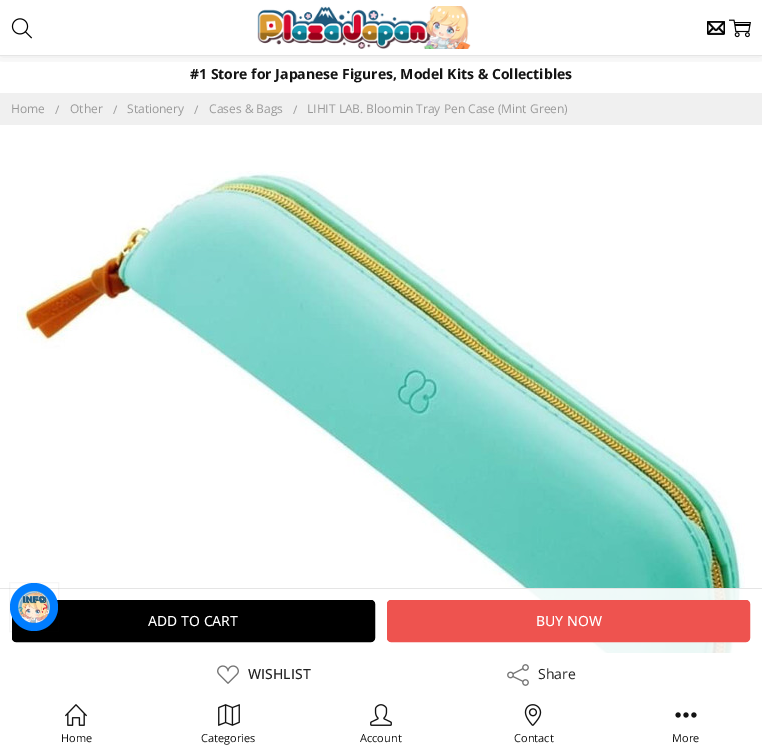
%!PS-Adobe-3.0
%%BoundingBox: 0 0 762 751
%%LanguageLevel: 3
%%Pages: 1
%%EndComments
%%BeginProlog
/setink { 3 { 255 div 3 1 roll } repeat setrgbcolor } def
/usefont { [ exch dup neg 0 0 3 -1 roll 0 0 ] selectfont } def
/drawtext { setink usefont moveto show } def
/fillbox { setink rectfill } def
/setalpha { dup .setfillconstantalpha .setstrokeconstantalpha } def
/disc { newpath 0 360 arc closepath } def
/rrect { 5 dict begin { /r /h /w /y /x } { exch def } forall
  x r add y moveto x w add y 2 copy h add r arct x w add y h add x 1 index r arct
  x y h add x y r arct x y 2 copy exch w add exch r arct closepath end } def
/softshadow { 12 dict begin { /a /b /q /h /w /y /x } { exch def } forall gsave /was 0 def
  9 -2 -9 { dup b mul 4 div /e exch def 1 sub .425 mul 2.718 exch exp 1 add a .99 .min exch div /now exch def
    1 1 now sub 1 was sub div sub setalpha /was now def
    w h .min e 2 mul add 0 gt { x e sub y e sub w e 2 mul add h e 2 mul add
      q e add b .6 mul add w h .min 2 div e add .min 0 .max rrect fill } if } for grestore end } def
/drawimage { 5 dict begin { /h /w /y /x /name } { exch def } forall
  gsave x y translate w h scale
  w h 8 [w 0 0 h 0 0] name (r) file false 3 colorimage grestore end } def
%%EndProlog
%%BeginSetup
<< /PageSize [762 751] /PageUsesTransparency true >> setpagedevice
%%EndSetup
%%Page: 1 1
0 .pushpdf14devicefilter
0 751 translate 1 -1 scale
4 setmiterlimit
0 0 762 751 255 255 255 fillbox
gsave
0 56 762 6 rectclip
0 0 0 setink
0 0 762 56 0 7.5 0.1 softshadow
grestore
0 55 762 1 229 229 229 fillbox
(assets/img1.rgb) 257 6 214 43 drawimage
(assets/img2.rgb) 11 18 22 21 drawimage
(assets/img3.rgb) 707 21 18 14 drawimage
(assets/img4.rgb) 729 19 22 19 drawimage
(#1 Store for Japanese Figures, Model Kits & Collectibles) 190 79 /OpenSans-Bold 14 19 19 19 drawtext
0 93 762 32 240 240 240 fillbox
(Home) 11 113 /OpenSans-Regular 12 153 153 153 drawtext
(/) 55 114 /OpenSans-Regular 12 153 153 153 drawtext
(Other) 70 113 /OpenSans-Regular 12 153 153 153 drawtext
(/) 113 114 /OpenSans-Regular 12 153 153 153 drawtext
(Stationery) 127 113 /OpenSans-Regular 12 153 153 153 drawtext
(/) 194 114 /OpenSans-Regular 12 153 153 153 drawtext
(Cases & Bags) 209 113 /OpenSans-Regular 12 153 153 153 drawtext
(/) 293 114 /OpenSans-Regular 12 153 153 153 drawtext
(LIHIT LAB. Bloomin Tray Pen Case \(Mint Green\)) 307 113 /OpenSans-Regular 12 153 153 153 drawtext
(assets/img5.rgb) 17 171 728 482 drawimage
0.9 setalpha
513 589 232 64 255 255 255 fillbox
1 setalpha
0 588 762 1 229 229 229 fillbox
0 0 0 setink
12.5 600.5 362 41 3.5 rrect gsave fill grestore
stroke
(ADD TO CART) 148 626 /OpenSans-Medium 14 255 255 255 drawtext
238 83 79 setink
387.5 600.5 362 41 3.5 rrect gsave fill grestore
stroke
(BUY NOW) 536 626 /OpenSans-Medium 14 255 255 255 drawtext
(assets/img6.rgb) 217 665 22 19 drawimage
(WISHLIST) 248 679 /OpenSans-Medium 14 34 34 34 drawtext
(assets/img7.rgb) 507 664 22 22 drawimage
(Share) 538 679 /OpenSans-Regular 14 34 34 34 drawtext
0.04 setalpha
22 26 30 setink
9.5 582.5 49 49 rectstroke
1 setalpha
0 125 255 setink
34 607 24 disc fill
(assets/img8.rgb) 18 591 32 32 drawimage
(assets/img9.rgb) 65 704 22 22 drawimage
(Home) 61 742 /OpenSans-Regular 11 19 19 19 drawtext
(assets/img10.rgb) 218 704 22 22 drawimage
(Categories) 201 742 /OpenSans-Regular 11 19 19 19 drawtext
(assets/img11.rgb) 370 704 22 22 drawimage
(Account) 360 742 /OpenSans-Regular 11 19 19 19 drawtext
(assets/img12.rgb) 524 704 18 22 drawimage
(Contact) 514 742 /OpenSans-Regular 11 19 19 19 drawtext
(assets/img13.rgb) 675 712 22 6 drawimage
(More) 672 742 /OpenSans-Regular 11 19 19 19 drawtext
.poppdf14devicefilter showpage
%%EOF
